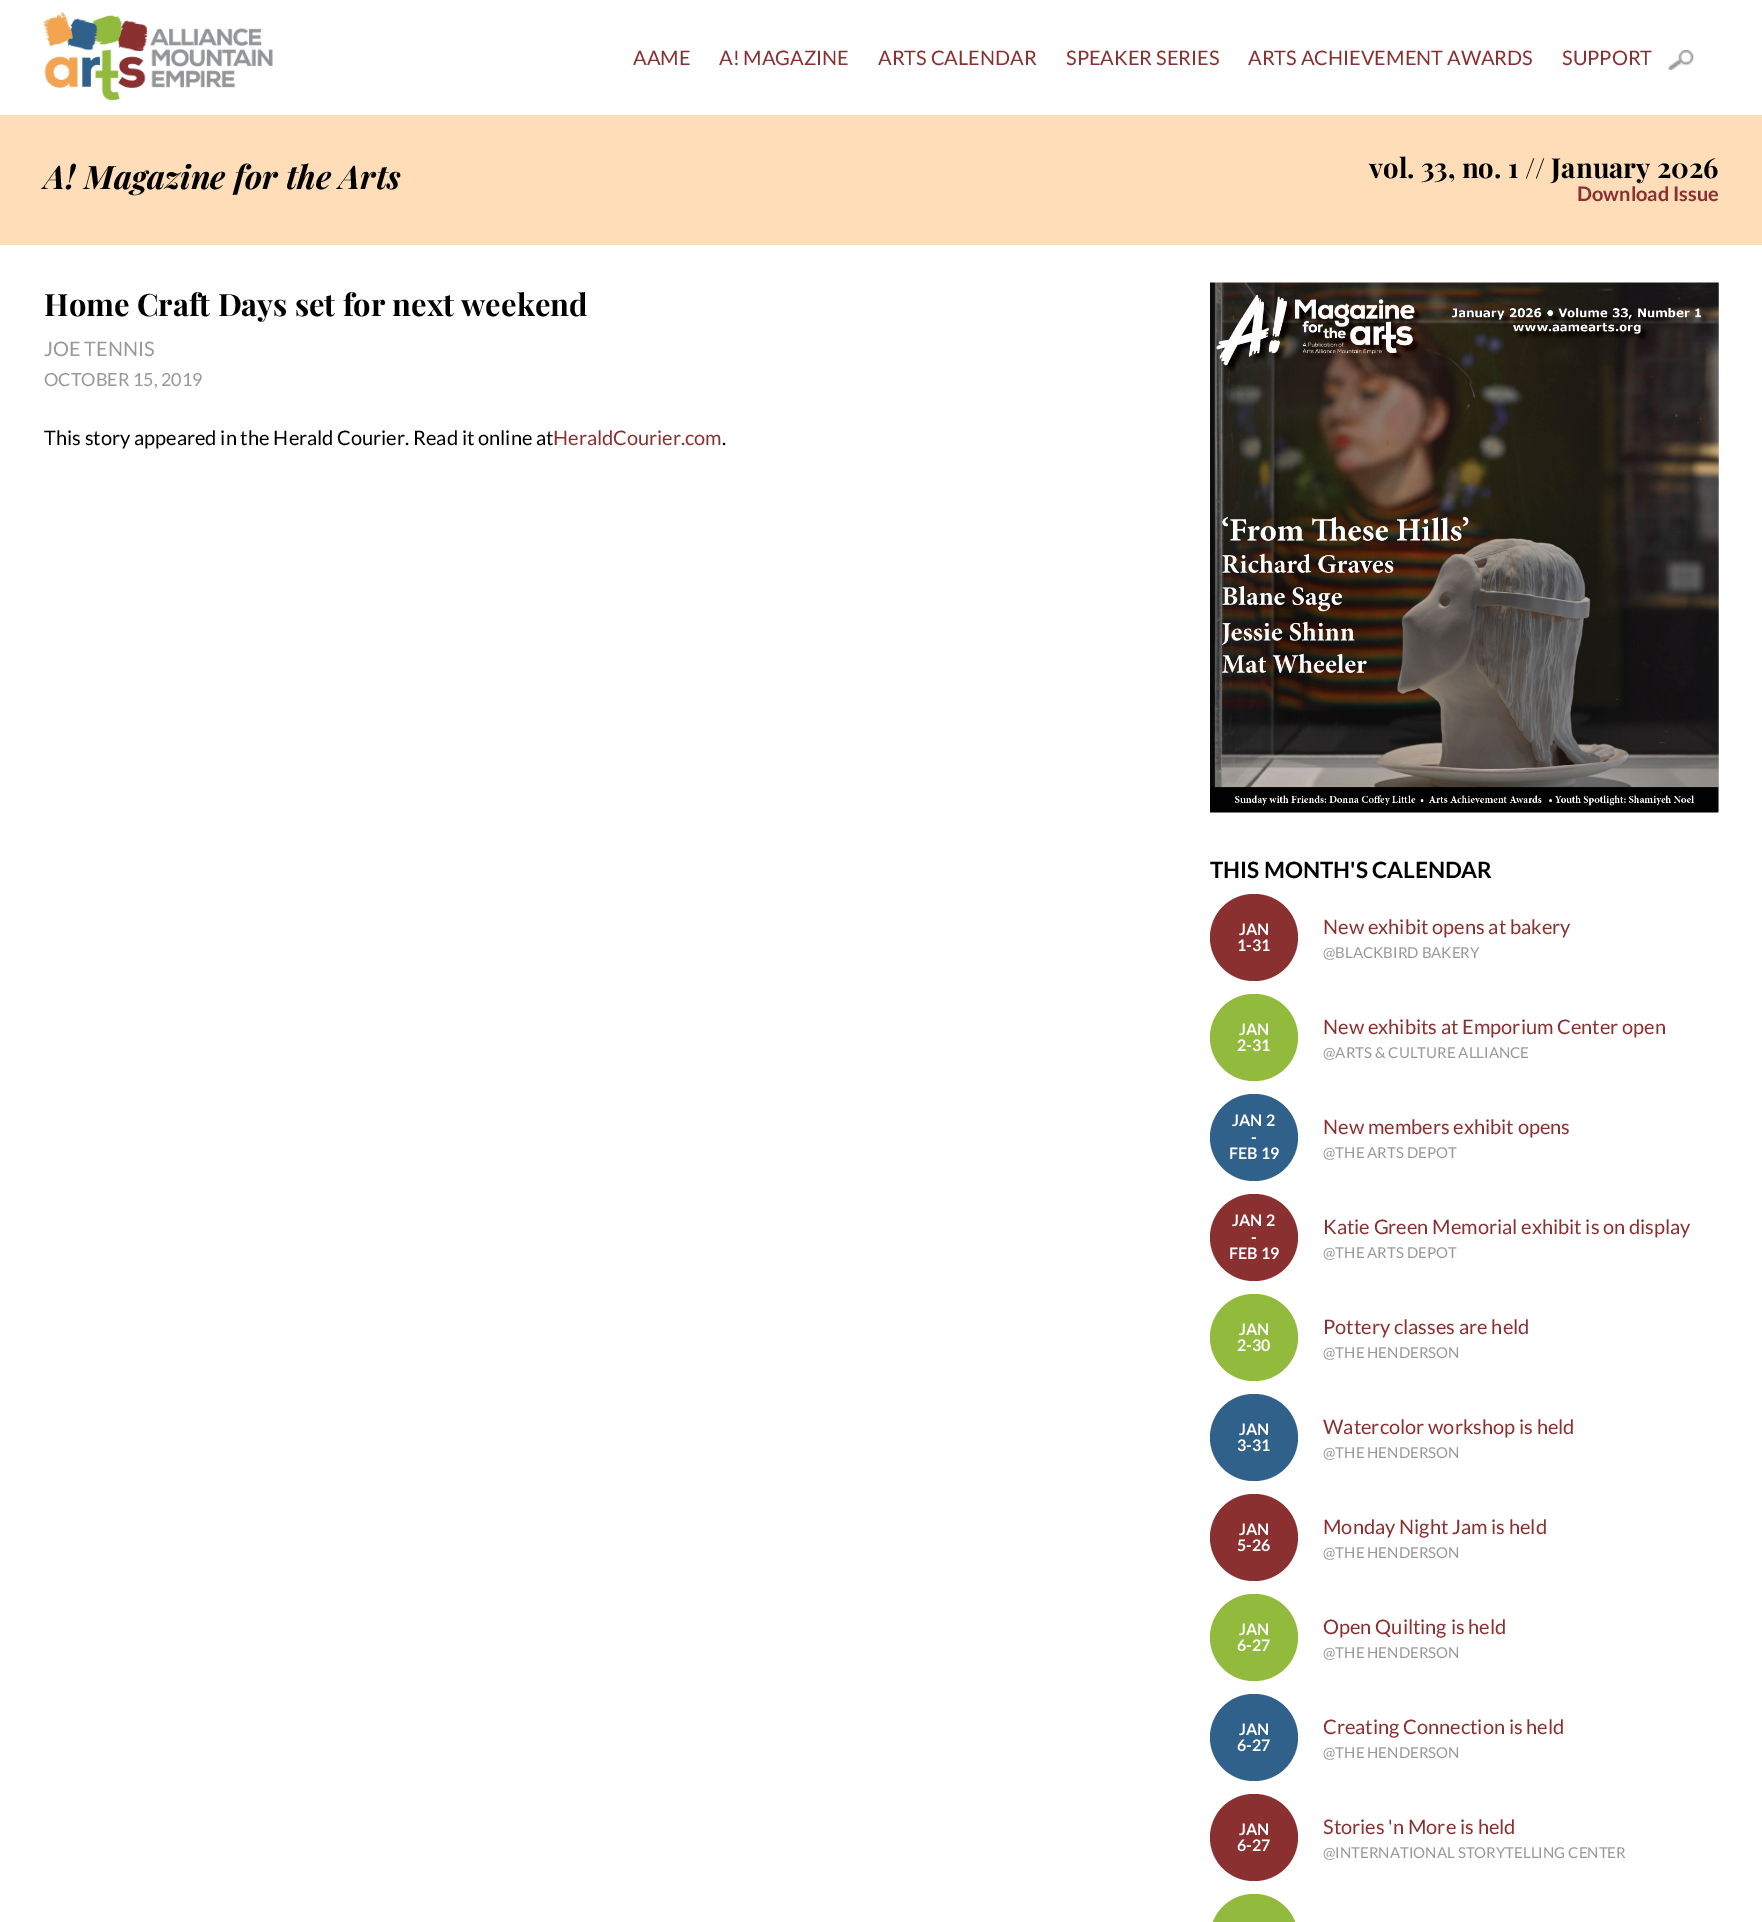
%!PS-Adobe-3.0
%%BoundingBox: 0 0 1762 1922
%%LanguageLevel: 3
%%Pages: 1
%%EndComments
%%BeginProlog
/setink { 3 { 255 div 3 1 roll } repeat setrgbcolor } def
/usefont { [ exch dup neg 0 0 3 -1 roll 0 0 ] selectfont } def
/drawtext { setink usefont moveto show } def
/fillbox { setink rectfill } def
/rrect { 5 dict begin { /r /h /w /y /x } { exch def } forall
  x r add y moveto x w add y 2 copy h add r arct x w add y h add x 1 index r arct
  x y h add x y r arct x y 2 copy exch w add exch r arct closepath end } def
/drawimage { 5 dict begin { /h /w /y /x /name } { exch def } forall
  gsave x y translate w h scale
  w h 8 [w 0 0 h 0 0] name (r) file false 3 colorimage grestore end } def
%%EndProlog
%%BeginSetup
<< /PageSize [1762 1922] >> setpagedevice
%%EndSetup
%%Page: 1 1
0 1922 translate 1 -1 scale
4 setmiterlimit
0 0 1762 1922 255 255 255 fillbox
(assets/img1.rgb) 43 12 230 88 drawimage
(AAME) 633 65 /Lato-Regular 20 138 48 49 drawtext
(A! MAGAZINE) 719 65 /Lato-Regular 20 138 48 49 drawtext
(ARTS CALENDAR) 878 65 /Lato-Regular 20 138 48 49 drawtext
(SPEAKER SERIES) 1066 65 /Lato-Regular 20 138 48 49 drawtext
(ARTS ACHIEVEMENT AWARDS) 1248 65 /Lato-Regular 20 138 48 49 drawtext
(SUPPORT) 1562 65 /Lato-Regular 20 138 48 49 drawtext
(assets/img2.rgb) 1668 50 26 20 drawimage
0 115 1762 130 254 221 184 fillbox
(A! Magazine for the Arts) 44 189 /PlayfairDisplay-BoldItalic 32.5 0 0 0 drawtext
(vol. 33, no. 1 // January 2026) 1369 178 /PlayfairDisplay-Bold 27.5 0 0 0 drawtext
(Download Issue) 1577 201 /Lato-Bold 20 138 48 49 drawtext
(Home Craft Days set for next weekend) 44 316 /PlayfairDisplay-Bold 30.8 0 0 0 drawtext
(JOE TENNIS) 44 356 /Lato-Regular 20 153 153 153 drawtext
(OCTOBER 15, 2019) 44 386 /Lato-Regular 18 153 153 153 drawtext
(This story appeared in the Herald Courier. Read it online at) 44 445 /Lato-Regular 20 0 0 0 drawtext
(HeraldCourier.com) 553 445 /Lato-Regular 20 138 48 49 drawtext
(.) 722 445 /Lato-Regular 20 0 0 0 drawtext
(assets/img3.rgb) 1210 282 509 531 drawimage
(THIS MONTH'S CALENDAR) 1210 878 /Lato-Bold 22.5 0 0 0 drawtext
138 48 49 setink
1210 894 88 87 43.5 rrect fill
(JAN) 1239 935 /Lato-Bold 16 255 255 255 drawtext
(1-31) 1237 951 /Lato-Bold 16 255 255 255 drawtext
(New exhibit opens at bakery) 1323 934 /Lato-Regular 20 138 48 49 drawtext
(@BLACKBIRD BAKERY) 1323 958 /Lato-Regular 15 153 153 153 drawtext
146 186 61 setink
1210 994 88 87 43.5 rrect fill
(JAN) 1239 1035 /Lato-Bold 16 255 255 255 drawtext
(2-31) 1237 1051 /Lato-Bold 16 255 255 255 drawtext
(New exhibits at Emporium Center open) 1323 1034 /Lato-Regular 20 138 48 49 drawtext
(@ARTS & CULTURE ALLIANCE) 1323 1058 /Lato-Regular 15 153 153 153 drawtext
48 97 139 setink
1210 1094 88 87 43.5 rrect fill
(JAN 2) 1232 1126 /Lato-Bold 16 255 255 255 drawtext
(-) 1251 1143 /Lato-Bold 16 255 255 255 drawtext
(FEB 19) 1229 1159 /Lato-Bold 16 255 255 255 drawtext
(New members exhibit opens) 1323 1134 /Lato-Regular 20 138 48 49 drawtext
(@THE ARTS DEPOT) 1323 1158 /Lato-Regular 15 153 153 153 drawtext
138 48 49 setink
1210 1194 88 87 43.5 rrect fill
(JAN 2) 1232 1226 /Lato-Bold 16 255 255 255 drawtext
(-) 1251 1243 /Lato-Bold 16 255 255 255 drawtext
(FEB 19) 1229 1259 /Lato-Bold 16 255 255 255 drawtext
(Katie Green Memorial exhibit is on display) 1323 1234 /Lato-Regular 20 138 48 49 drawtext
(@THE ARTS DEPOT) 1323 1258 /Lato-Regular 15 153 153 153 drawtext
146 186 61 setink
1210 1294 88 87 43.5 rrect fill
(JAN) 1239 1335 /Lato-Bold 16 255 255 255 drawtext
(2-30) 1237 1351 /Lato-Bold 16 255 255 255 drawtext
(Pottery classes are held) 1323 1334 /Lato-Regular 20 138 48 49 drawtext
(@THE HENDERSON) 1323 1358 /Lato-Regular 15 153 153 153 drawtext
48 97 139 setink
1210 1394 88 87 43.5 rrect fill
(JAN) 1239 1435 /Lato-Bold 16 255 255 255 drawtext
(3-31) 1237 1451 /Lato-Bold 16 255 255 255 drawtext
(Watercolor workshop is held) 1323 1434 /Lato-Regular 20 138 48 49 drawtext
(@THE HENDERSON) 1323 1458 /Lato-Regular 15 153 153 153 drawtext
138 48 49 setink
1210 1494 88 87 43.5 rrect fill
(JAN) 1239 1535 /Lato-Bold 16 255 255 255 drawtext
(5-26) 1237 1551 /Lato-Bold 16 255 255 255 drawtext
(Monday Night Jam is held) 1323 1534 /Lato-Regular 20 138 48 49 drawtext
(@THE HENDERSON) 1323 1558 /Lato-Regular 15 153 153 153 drawtext
146 186 61 setink
1210 1594 88 87 43.5 rrect fill
(JAN) 1239 1635 /Lato-Bold 16 255 255 255 drawtext
(6-27) 1237 1651 /Lato-Bold 16 255 255 255 drawtext
(Open Quilting is held) 1323 1634 /Lato-Regular 20 138 48 49 drawtext
(@THE HENDERSON) 1323 1658 /Lato-Regular 15 153 153 153 drawtext
48 97 139 setink
1210 1694 88 87 43.5 rrect fill
(JAN) 1239 1735 /Lato-Bold 16 255 255 255 drawtext
(6-27) 1237 1751 /Lato-Bold 16 255 255 255 drawtext
(Creating Connection is held) 1323 1734 /Lato-Regular 20 138 48 49 drawtext
(@THE HENDERSON) 1323 1758 /Lato-Regular 15 153 153 153 drawtext
138 48 49 setink
1210 1794 88 87 43.5 rrect fill
(JAN) 1239 1835 /Lato-Bold 16 255 255 255 drawtext
(6-27) 1237 1851 /Lato-Bold 16 255 255 255 drawtext
(Stories 'n More is held) 1323 1834 /Lato-Regular 20 138 48 49 drawtext
(@INTERNATIONAL STORYTELLING CENTER) 1323 1858 /Lato-Regular 15 153 153 153 drawtext
146 186 61 setink
1210 1894 88 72 43.5 rrect fill
showpage
%%EOF
